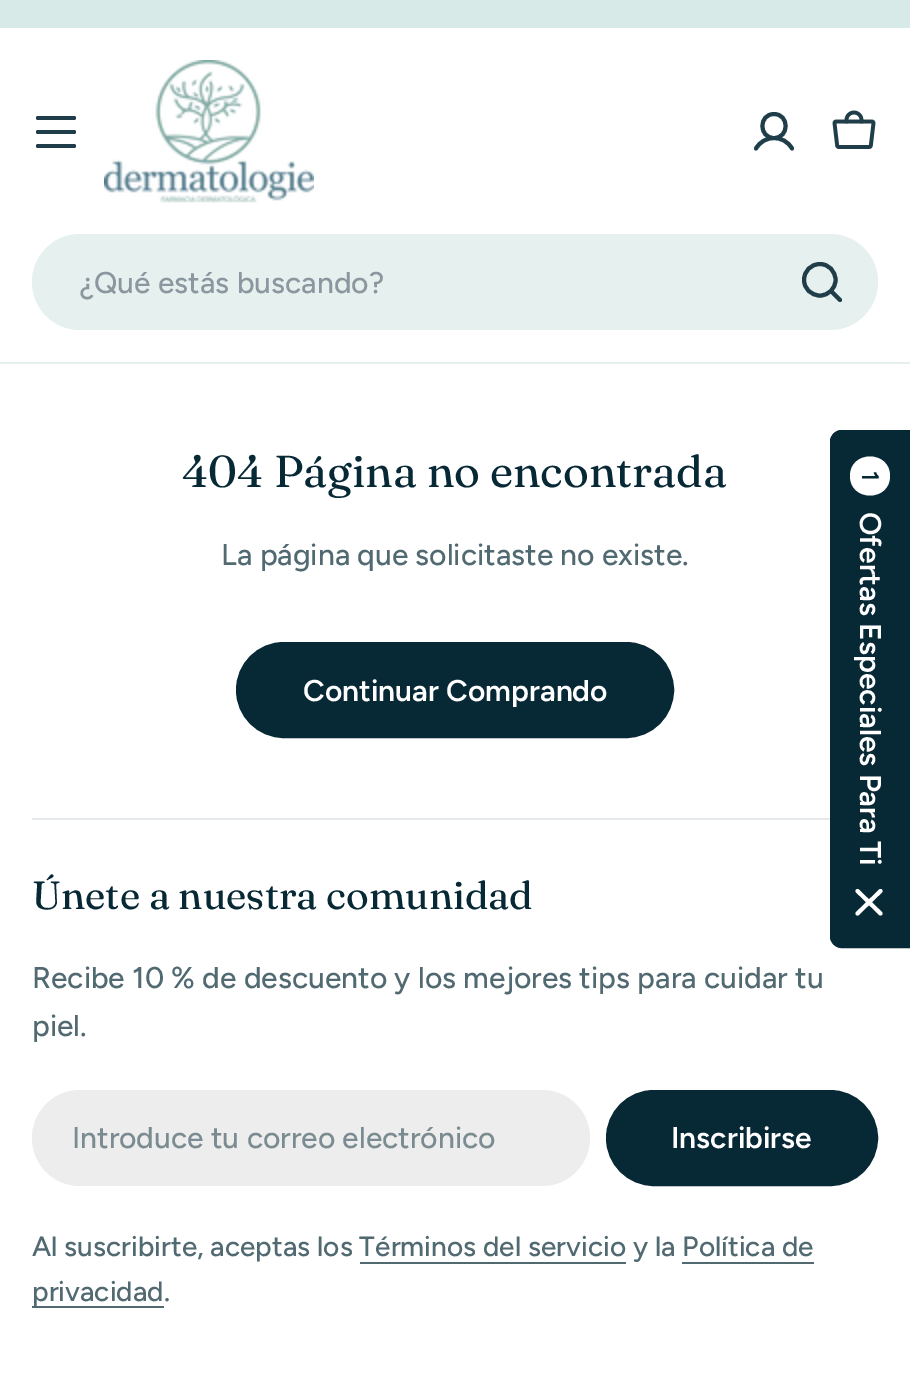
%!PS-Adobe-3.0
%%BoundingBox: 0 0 910 1377
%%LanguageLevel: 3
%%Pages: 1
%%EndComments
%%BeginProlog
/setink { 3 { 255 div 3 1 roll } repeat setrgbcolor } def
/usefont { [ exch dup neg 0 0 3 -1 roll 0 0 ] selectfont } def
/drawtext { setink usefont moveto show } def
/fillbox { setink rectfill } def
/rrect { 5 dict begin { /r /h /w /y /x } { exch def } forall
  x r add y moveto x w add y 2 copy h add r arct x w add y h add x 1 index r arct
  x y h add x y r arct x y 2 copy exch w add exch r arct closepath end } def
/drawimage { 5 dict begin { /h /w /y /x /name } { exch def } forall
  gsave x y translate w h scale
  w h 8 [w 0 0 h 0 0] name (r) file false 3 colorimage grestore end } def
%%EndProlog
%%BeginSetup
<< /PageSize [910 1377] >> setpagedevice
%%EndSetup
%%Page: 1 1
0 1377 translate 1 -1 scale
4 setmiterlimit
0 0 910 1377 255 255 255 fillbox
0 0 910 28 216 234 232 fillbox
32 62 73 setink
36 130 40 4 2 rrect fill
36 116 40 4 2 rrect fill
36 144 40 4 2 rrect fill
(assets/img1.rgb) 104 60 210 143 drawimage
4 setlinewidth
1 setlinecap
1 setlinejoin
774 138 moveto 789.5 138 789.5 114 774 114 curveto 758.5 114 758.5 138 774 138 curveto closepath 756 148.5 moveto 764 134.5 784 134.5 792 148.5 curveto stroke
(assets/img2.rgb) 832 110 44 39 drawimage
230 240 239 setink
32 234 846 96 48 rrect fill
(¿Qué estás buscando?) 80 293 /Figtree-Medium 30 138 151 159 drawtext
32 62 73 setink
820 295.5 moveto 828.5 295.5 835.5 288.5 835.5 280 curveto 835.5 271 828.5 264 820 264 curveto 811 264 804 271 804 280 curveto 804 288.5 811 295.5 820 295.5 curveto closepath 831 291 moveto 840 300 lineto stroke
0 362 910 2 230 240 239 fillbox
(404 Página no encontrada) 182 487 /Fraunces-Regular 44.75 7 40 53 drawtext
(La página que solicitaste no existe.) 221 565 /Figtree-Medium 30 81 105 113 drawtext
7 40 53 setink
237 643 436 94 47 rrect gsave fill grestore
2 setlinewidth
0 setlinecap
0 setlinejoin
stroke
(Continuar Comprando) 303 701 /Figtree-SemiBold 30 255 255 255 drawtext
32 818 798 2 230 233 235 fillbox
(Únete a nuestra comunidad) 32 909 /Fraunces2-Regular 39.25 7 40 53 drawtext
(Recibe 10 % de descuento y los mejores tips para cuidar tu) 32 988 /Figtree-Medium 30 81 105 113 drawtext
(piel.) 32 1036 /Figtree-Medium 30 81 105 113 drawtext
237 237 237 setink
32 1090 558 96 48 rrect fill
(Introduce tu correo electrónico) 72 1148 /Figtree-Medium 30 122 139 145 drawtext
7 40 53 setink
607 1091 270 94 47 rrect gsave fill grestore
stroke
(Inscribirse) 671 1148 /Figtree-SemiBold 30 255 255 255 drawtext
(Al suscribirte, aceptas los Términos del servicio y la Política de) 32 1256 /Figtree-Medium 28 81 105 113 drawtext
360 1262 266 2 81 105 113 fillbox
32 1306 132 2 81 105 113 fillbox
(privacidad.) 32 1301 /Figtree-Medium 28 81 105 113 drawtext
682 1262 132 2 81 105 113 fillbox
7 40 53 setink
830 936 moveto 830 442 lineto 830 436 835 430 842 430 curveto 910 430 lineto 910 948 lineto 842 948 lineto 835 948 830 942 830 936 curveto closepath fill
831 936 moveto 831 442 lineto 831 436 836 431 842 431 curveto 909 431 lineto 909 947 lineto 842 947 lineto 836 947 831 942 831 936 curveto closepath stroke
255 255 255 setink
890 476 moveto 890 502 850 502 850 476 curveto 850 450 890 450 890 476 curveto closepath fill
/Figtree-SemiBold 24 usefont
7 40 53 setink
gsave 862 471 translate 90 rotate 0 0 moveto (1) show grestore
/Figtree-SemiBold 30 usefont
255 255 255 setink
gsave 860 512 translate 90 rotate 0 0 moveto (Ofertas Especiales Para Ti) show grestore
4 setlinewidth
1 setlinecap
1 setlinejoin
880.5 913.5 moveto 857.5 891 lineto 857.5 913.5 moveto 880.5 891 lineto stroke
showpage
%%EOF
